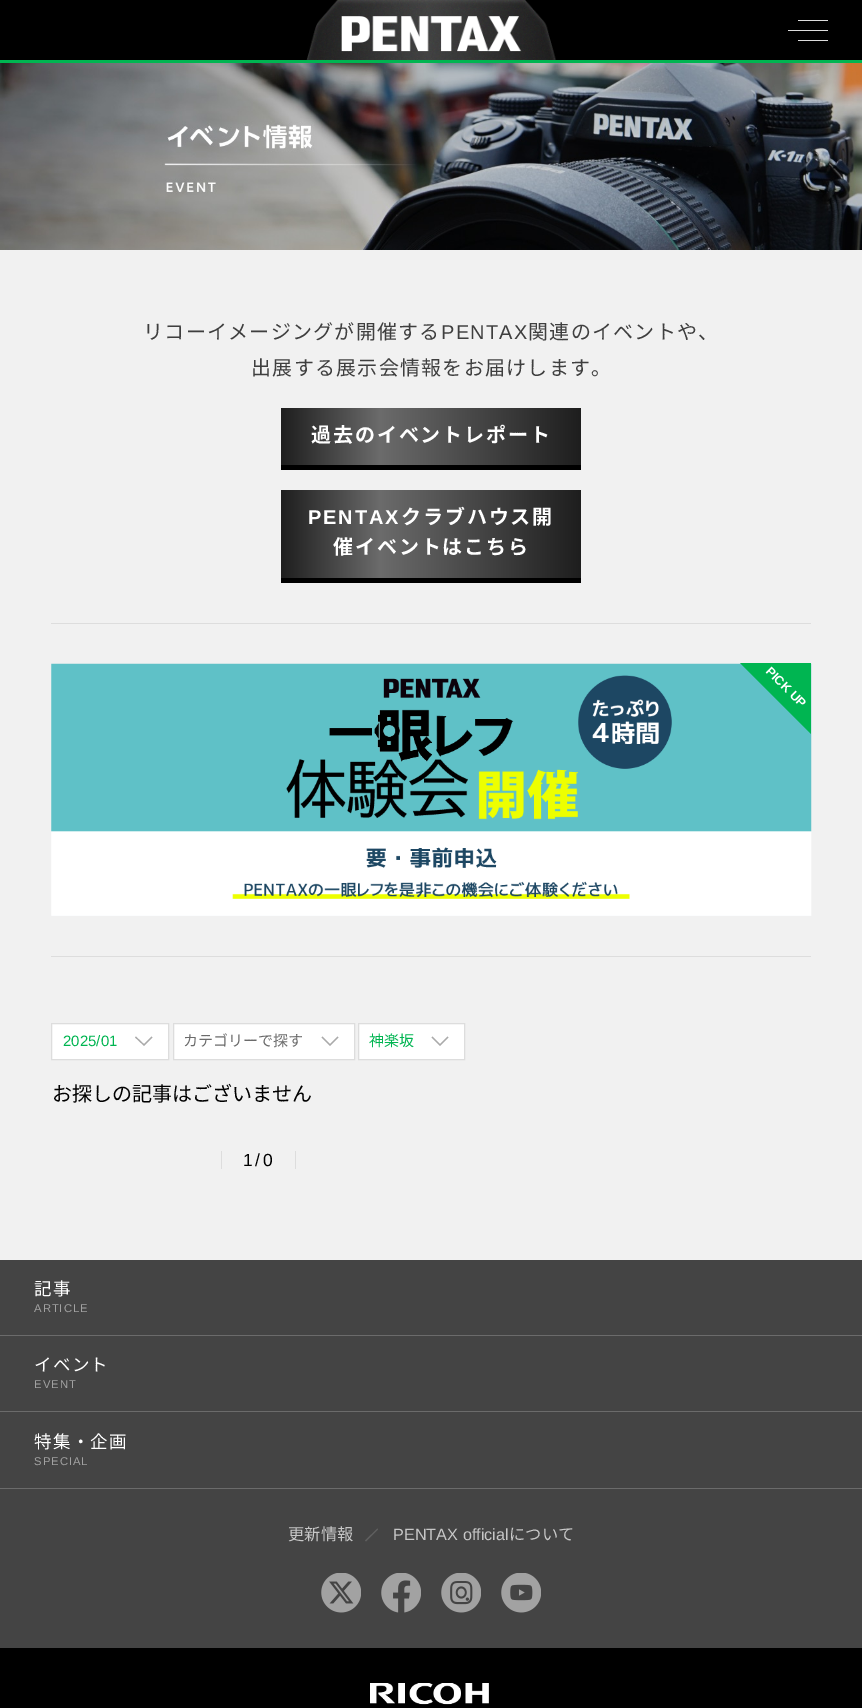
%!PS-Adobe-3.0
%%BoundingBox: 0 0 862 1708
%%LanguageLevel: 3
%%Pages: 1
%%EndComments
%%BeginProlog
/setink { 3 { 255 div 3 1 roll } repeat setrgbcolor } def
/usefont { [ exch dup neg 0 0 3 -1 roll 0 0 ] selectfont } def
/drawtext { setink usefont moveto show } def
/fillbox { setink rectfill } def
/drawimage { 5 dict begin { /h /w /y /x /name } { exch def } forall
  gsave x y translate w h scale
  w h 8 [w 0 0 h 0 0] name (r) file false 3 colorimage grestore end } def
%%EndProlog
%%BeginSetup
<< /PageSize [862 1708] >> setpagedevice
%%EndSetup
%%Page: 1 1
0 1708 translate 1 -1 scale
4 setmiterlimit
0 0 862 1708 241 241 241 fillbox
0 0 862 60 0 0 0 fillbox
(assets/img1.rgb) 306 0 251 60 drawimage
798 20 30 1 221 221 221 fillbox
788 30 40 1 221 221 221 fillbox
798 40 30 1 221 221 221 fillbox
0 60 862 3 0 181 81 fillbox
(assets/img2.rgb) 0 63 862 187 drawimage
/NotoSansJP-Regular 20 usefont
63 63 63 setink
143 339 moveto 1.25 0 (リコーイメージングが開催する) ashow
/LiberationSans-Regular 20 usefont
441 339 moveto 1.25 0 (PENTAX) ashow
/NotoSansJP-Regular 20 usefont
528 339 moveto 1.25 0 (関連のイベントや、) ashow
251 375 moveto 1.25 0 (出展する展示会情報をお届けします。) ashow
gsave 281 408 moveto 581 408 lineto 581 465 lineto 281 465 lineto closepath clip newpath
<< /ShadingType 2 /ColorSpace /DeviceRGB /Coords [281 436 581 436] /Extend [true true] /Function << /FunctionType 3 /Domain [0 1] /Functions [<< /FunctionType 2 /Domain [0 1] /C0 [0.118 0.118 0.118] /C1 [0.42 0.42 0.42] /N 1 >> << /FunctionType 2 /Domain [0 1] /C0 [0.42 0.42 0.42] /C1 [0.118 0.118 0.118] /N 1 >>] /Bounds [0.33] /Encode [0 1 0 1] >> >> shfill grestore
281 465 300 5 0 0 0 fillbox
/NotoSansJP-Bold 20 usefont
255 255 255 setink
311 442 moveto 1.9 0 (過去のイベントレポート) ashow
gsave 281 490 moveto 581 490 lineto 581 578 lineto 281 578 lineto closepath clip newpath
<< /ShadingType 2 /ColorSpace /DeviceRGB /Coords [281 534 581 534] /Extend [true true] /Function << /FunctionType 3 /Domain [0 1] /Functions [<< /FunctionType 2 /Domain [0 1] /C0 [0.118 0.118 0.118] /C1 [0.42 0.42 0.42] /N 1 >> << /FunctionType 2 /Domain [0 1] /C0 [0.42 0.42 0.42] /C1 [0.118 0.118 0.118] /N 1 >>] /Bounds [0.33] /Encode [0 1 0 1] >> >> shfill grestore
281 578 300 5 0 0 0 fillbox
/LiberationSans-Bold 20 usefont
255 255 255 setink
308 524 moveto 1.9 0 (PENTAX) ashow
/NotoSansJP-Bold 20 usefont
401 524 moveto 1.9 0 (クラブハウス開) ashow
333 554 moveto 1.9 0 (催イベントはこちら) ashow
51 623 760 1 221 221 221 fillbox
(assets/img3.rgb) 51 663 761 253 drawimage
0 181 81 setink
811 734 moveto 740 663 lineto 811 663 lineto closepath fill
/LiberationSans-Bold 12.5 usefont
255 255 255 setink
gsave 765 672 translate 45 rotate 0 0 moveto (PICK UP) show grestore
51 956 760 1 221 221 221 fillbox
255 255 255 setink
51.5 1023.5 moveto 168.5 1023.5 lineto 168.5 1059.5 lineto 51.5 1059.5 lineto closepath gsave fill grestore
221 221 221 setink
stroke
(2025/01) 63 1046 /LiberationSans-Regular 15 0 181 81 drawtext
170 170 170 setink
1.2 setlinewidth
152 1037 moveto 144 1045 lineto 135.5 1037 lineto stroke
255 255 255 setink
173.5 1023.5 moveto 354.5 1023.5 lineto 354.5 1059.5 lineto 173.5 1059.5 lineto closepath gsave fill grestore
221 221 221 setink
1 setlinewidth
stroke
(カテゴリーで探す) 183 1046 /NotoSansJP-Regular 15 107 107 107 drawtext
170 170 170 setink
1.2 setlinewidth
338 1037 moveto 330 1045 lineto 322 1037 lineto stroke
255 255 255 setink
358.5 1023.5 moveto 464.5 1023.5 lineto 464.5 1059.5 lineto 358.5 1059.5 lineto closepath gsave fill grestore
221 221 221 setink
1 setlinewidth
stroke
(神楽坂) 369 1046 /NotoSansJP-Regular 15 0 181 81 drawtext
170 170 170 setink
1.2 setlinewidth
448 1037 moveto 440 1045 lineto 432 1037 lineto stroke
(お探しの記事はございません) 52 1101 /NotoSansJP-Regular 20 0 0 0 drawtext
295 1151 1 18 221 221 221 fillbox
221 1151 1 18 221 221 221 fillbox
/LiberationSans-Regular 17.5 usefont
0 0 0 setink
243 1166 moveto 2.5 0 (1/0) ashow
0 1260 862 388 68 68 68 fillbox
0 1335 862 1 107 107 107 fillbox
/NotoSansJP-Regular 17.5 usefont
255 255 255 setink
34 1295 moveto 1.25 0 (記事) ashow
/LiberationSans-Regular 11.25 usefont
162 162 162 setink
34 1312 moveto 1 0 (ARTICLE) ashow
0 1411 862 1 107 107 107 fillbox
/NotoSansJP-Regular 17.5 usefont
255 255 255 setink
34 1371 moveto 1.25 0 (イベント) ashow
/LiberationSans-Regular 11.25 usefont
162 162 162 setink
34 1388 moveto 1 0 (EVENT) ashow
0 1488 862 1 107 107 107 fillbox
/NotoSansJP-Regular 17.5 usefont
255 255 255 setink
34 1448 moveto 1.25 0 (特集・企画) ashow
/LiberationSans-Regular 11.25 usefont
162 162 162 setink
34 1465 moveto 1 0 (SPECIAL) ashow
(更新情報) 288 1540 /NotoSansJP-Regular 16.25 199 199 199 drawtext
95 95 95 setink
377.5 1528.5 moveto 378 1529.5 lineto 366 1541.5 lineto 365 1540.5 lineto closepath fill
(PENTAX official) 393 1540 /LiberationSans-Regular 16.25 199 199 199 drawtext
(について) 509 1540 /NotoSansJP-Regular 16.25 199 199 199 drawtext
(assets/img4.rgb) 321 1573 40 40 drawimage
(assets/img5.rgb) 381 1573 40 40 drawimage
(assets/img6.rgb) 441 1573 40 40 drawimage
(assets/img7.rgb) 501 1573 40 40 drawimage
0 1648 862 60 0 0 0 fillbox
(assets/img8.rgb) 370 1683 119 22 drawimage
showpage
%%EOF
